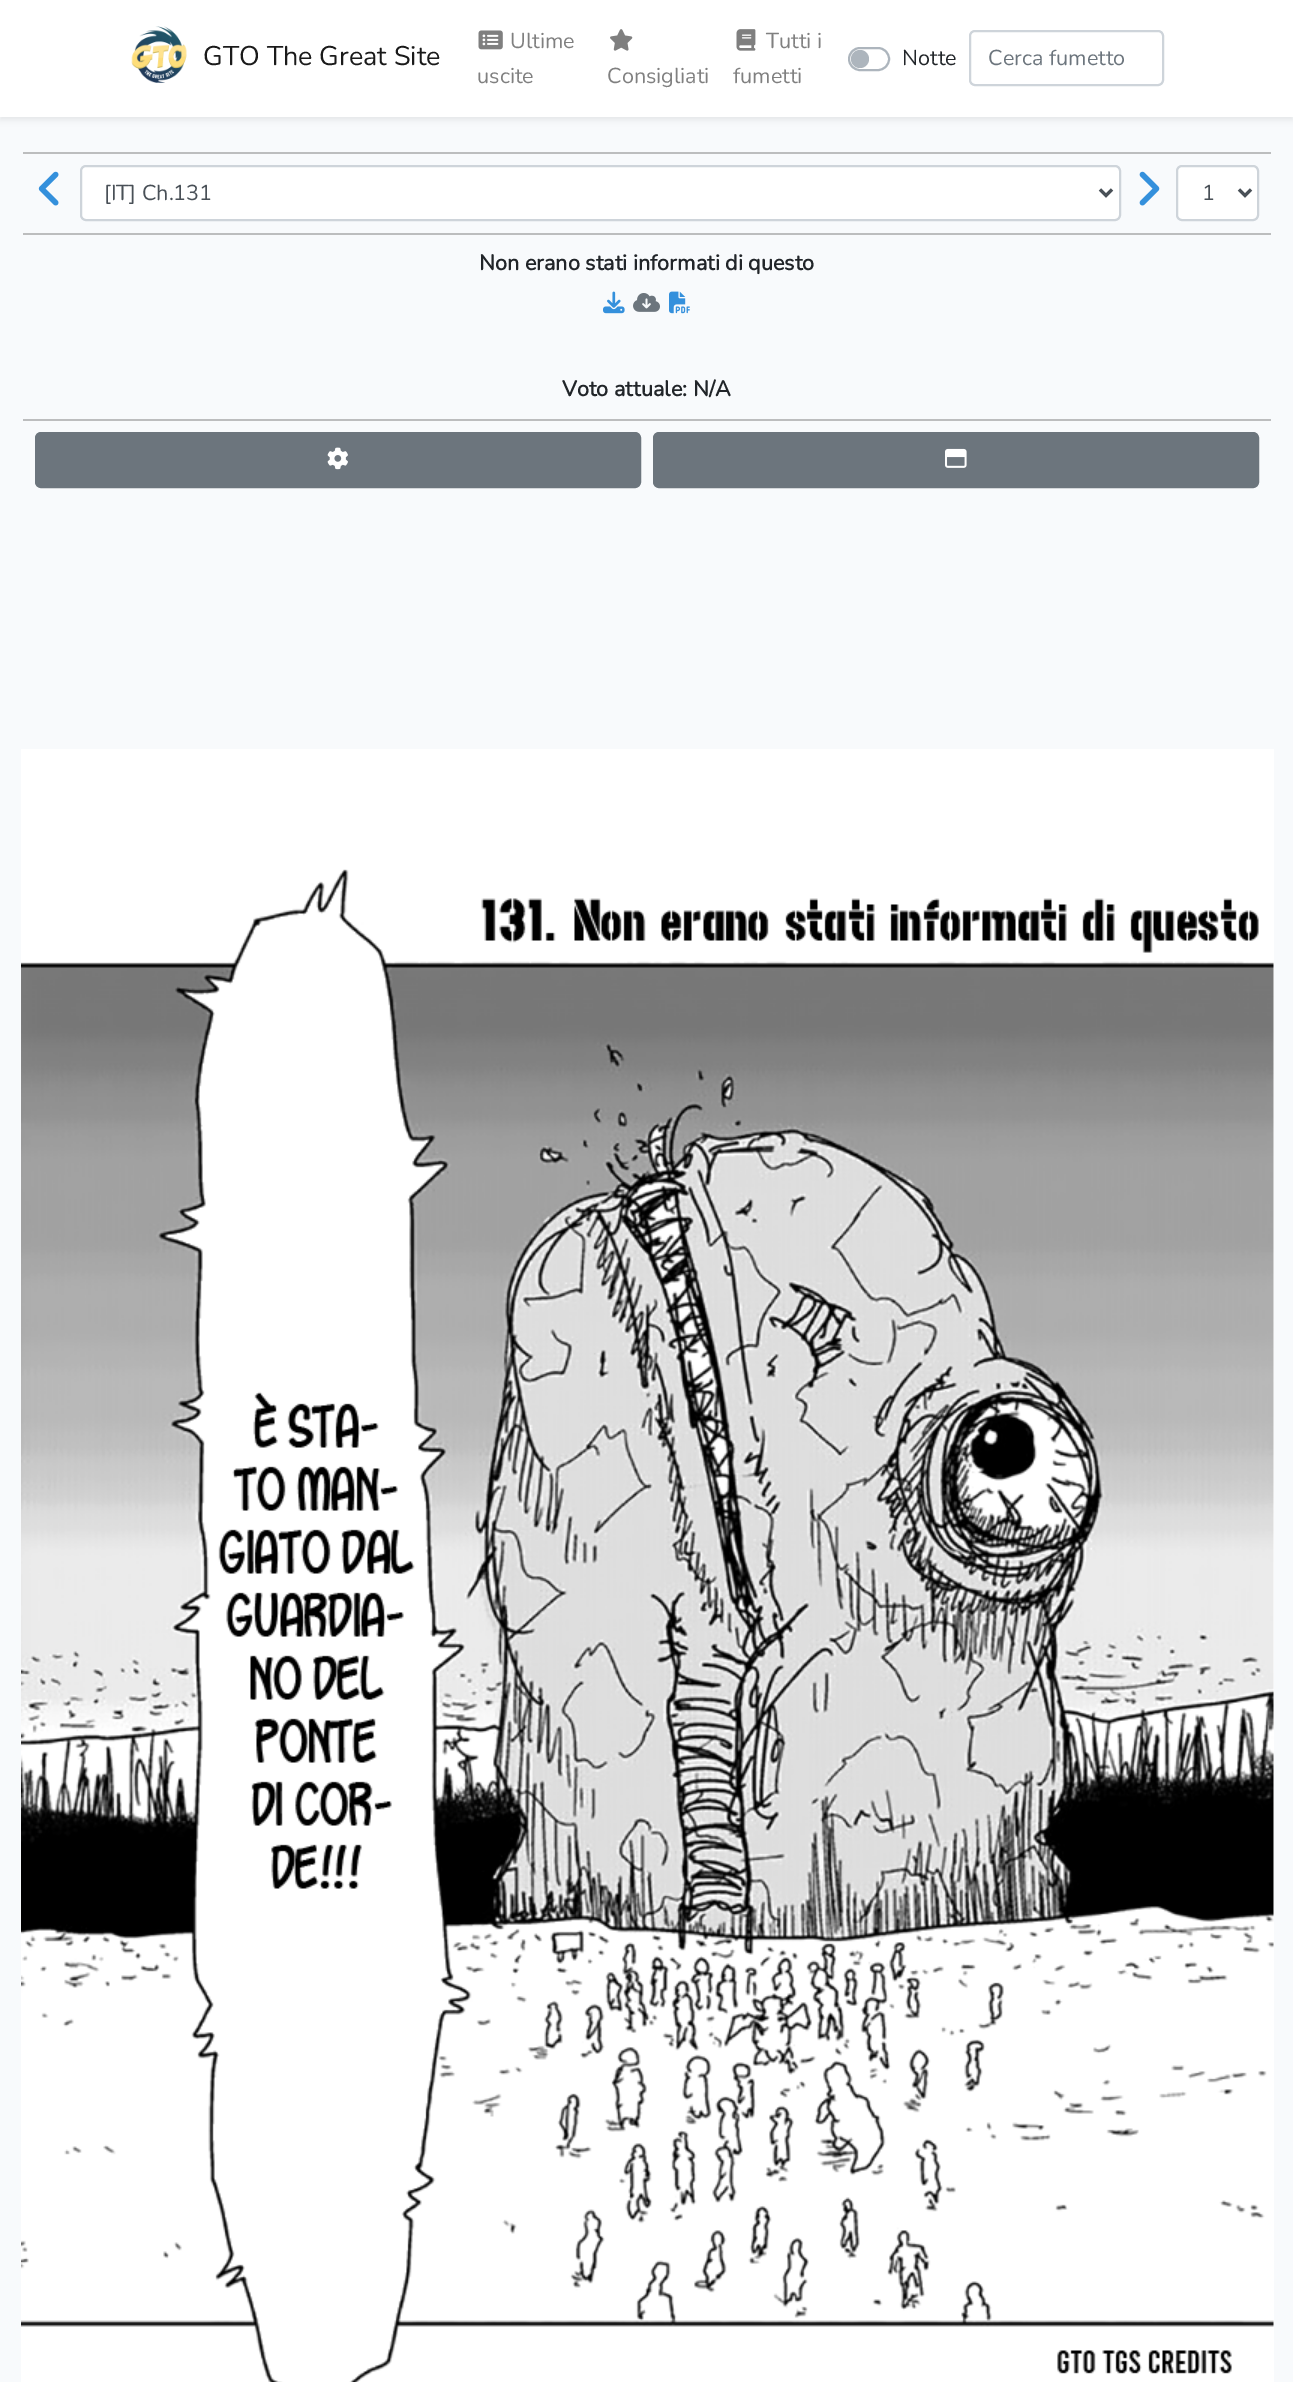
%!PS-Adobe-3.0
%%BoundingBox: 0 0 1293 2382
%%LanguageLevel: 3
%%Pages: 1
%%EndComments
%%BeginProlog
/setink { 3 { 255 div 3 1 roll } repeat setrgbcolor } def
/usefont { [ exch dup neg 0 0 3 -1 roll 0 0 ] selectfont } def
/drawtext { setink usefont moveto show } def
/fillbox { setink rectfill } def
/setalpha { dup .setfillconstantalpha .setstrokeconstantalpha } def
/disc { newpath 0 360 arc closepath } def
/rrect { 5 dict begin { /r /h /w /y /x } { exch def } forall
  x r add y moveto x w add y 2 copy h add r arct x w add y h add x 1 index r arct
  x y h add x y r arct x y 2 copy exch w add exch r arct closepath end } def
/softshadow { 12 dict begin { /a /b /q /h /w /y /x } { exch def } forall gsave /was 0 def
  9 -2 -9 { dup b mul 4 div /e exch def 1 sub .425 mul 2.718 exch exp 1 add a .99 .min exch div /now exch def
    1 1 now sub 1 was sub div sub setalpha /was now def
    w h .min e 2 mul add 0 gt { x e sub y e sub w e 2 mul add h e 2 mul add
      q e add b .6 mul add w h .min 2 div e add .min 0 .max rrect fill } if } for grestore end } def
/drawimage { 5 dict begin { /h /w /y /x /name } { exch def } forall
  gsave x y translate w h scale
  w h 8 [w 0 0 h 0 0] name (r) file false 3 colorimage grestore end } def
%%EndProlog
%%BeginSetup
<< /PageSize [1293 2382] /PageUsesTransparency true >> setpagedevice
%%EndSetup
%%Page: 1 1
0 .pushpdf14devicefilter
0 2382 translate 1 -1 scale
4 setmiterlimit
0 0 1293 2382 248 250 252 fillbox
0 0 0 setink
0 3 1293 117 0 3 0.07 softshadow
0 0 1293 117 255 255 255 fillbox
(assets/img1.rgb) 131 26 56 57 drawimage
(GTO The Great Site) 203 65 /Nunito-ExtraLight 27 26 26 26 drawtext
(assets/img2.rgb) 478 30 25 20 drawimage
(Ultime) 510 48 /Nunito-ExtraLight 21.6 128 128 128 drawtext
(uscite) 477 83 /Nunito-ExtraLight 21.6 128 128 128 drawtext
(assets/img3.rgb) 610 29 23 22 drawimage
(Consigliati) 607 83 /Nunito-ExtraLight 21.6 128 128 128 drawtext
(assets/img4.rgb) 736 29 20 22 drawimage
(Tutti i) 766 48 /Nunito-ExtraLight 21.6 128 128 128 drawtext
(fumetti) 733 83 /Nunito-ExtraLight 21.6 128 128 128 drawtext
173 181 189 setink
2 setlinewidth
849 48 40 22 11 rrect stroke
(Notte) 902 65 /Nunito-ExtraLight 21.6 33 37 41 drawtext
173 181 189 setink
860 59 9 disc fill
206 212 218 setink
970 31 193 54 5 rrect stroke
gsave
989 42 135 30 rectclip
(Cerca fumetto) 988 65 /Nunito-ExtraLight 21.6 108 117 125 drawtext
grestore
23 152 1248 2 188 189 190 fillbox
(assets/img5.rgb) 38 171 21 35 drawimage
255 255 255 setink
81 166 1039 54 5 rrect gsave fill grestore
206 212 218 setink
stroke
73 80 87 setink
3 setlinewidth
1100 189.5 moveto 1106 195.5 lineto 1112 189.5 lineto stroke
([IT] Ch.131) 104 200 /Nunito-ExtraLight 21.6 73 80 87 drawtext
(assets/img6.rgb) 1139 171 21 35 drawimage
255 255 255 setink
1177 166 81 54 5 rrect gsave fill grestore
206 212 218 setink
2 setlinewidth
stroke
73 80 87 setink
3 setlinewidth
1239 189.5 moveto 1245 195.5 lineto 1251 189.5 lineto stroke
(1) 1202 200 /Nunito-ExtraLight 21.6 73 80 87 drawtext
23 233 1248 2 188 189 190 fillbox
(Non erano stati informati di questo) 479 270 /Nunito-Bold 21.6 33 37 41 drawtext
(assets/img7.rgb) 603 291 22 23 drawimage
(assets/img8.rgb) 633 293 27 19 drawimage
(assets/img9.rgb) 669 291 21 23 drawimage
(Voto attuale: N/A) 562 396 /Nunito-Bold 21.6 33 37 41 drawtext
23 419 1248 2 188 189 190 fillbox
108 117 125 setink
36 433 604 54 5 rrect gsave fill grestore
2 setlinewidth
stroke
(assets/img10.rgb) 327 447 21 23 drawimage
654 433 604 54 5 rrect gsave fill grestore
stroke
(assets/img11.rgb) 945 448 22 20 drawimage
21 749 1253 1633 255 255 255 fillbox
(assets/img12.rgb) 21 869 1253 1513 drawimage
.poppdf14devicefilter showpage
%%EOF
